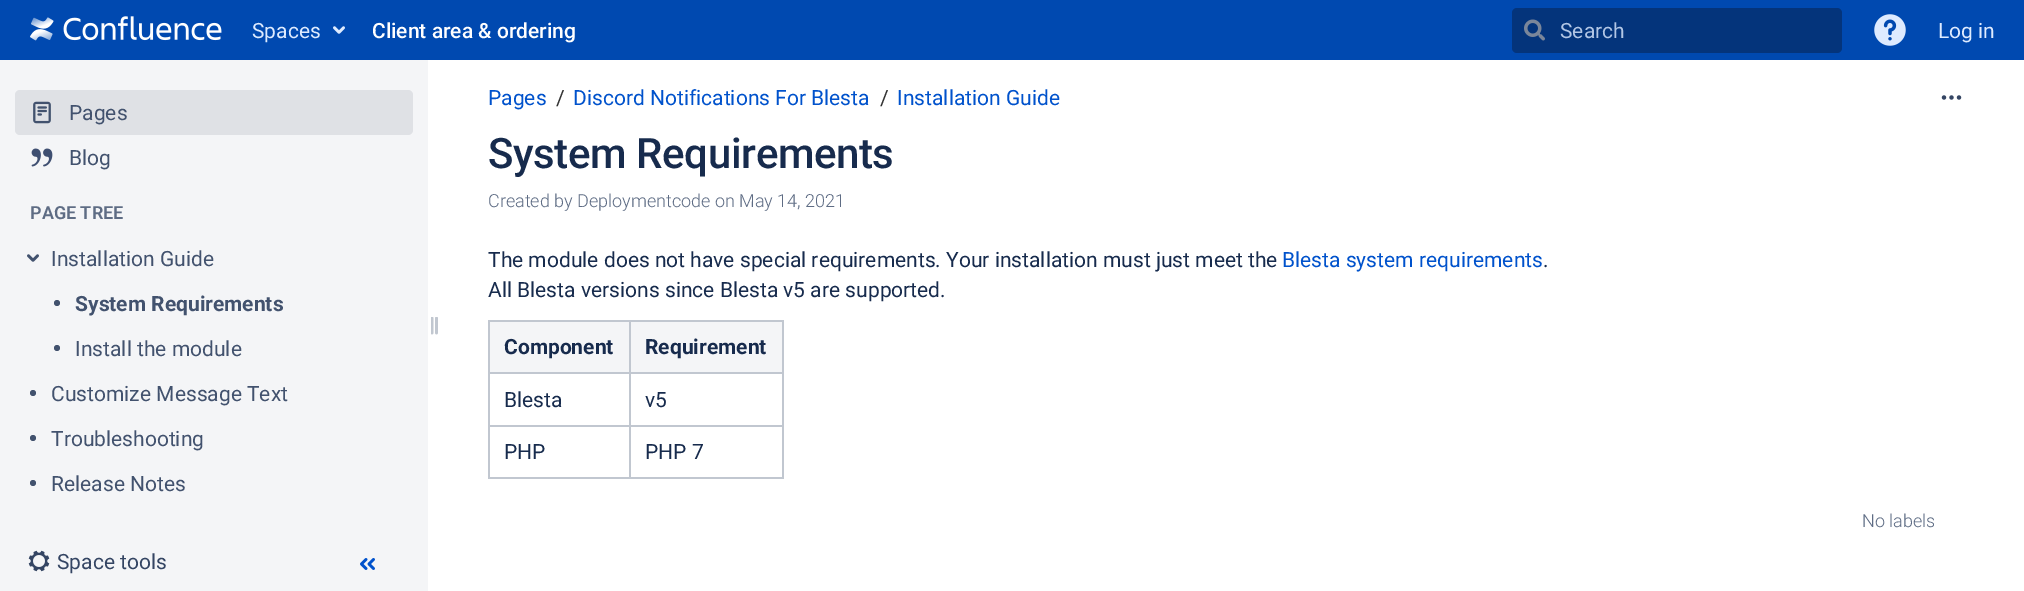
%!PS-Adobe-3.0
%%BoundingBox: 0 0 2024 591
%%LanguageLevel: 3
%%Pages: 1
%%EndComments
%%BeginProlog
/setink { 3 { 255 div 3 1 roll } repeat setrgbcolor } def
/usefont { [ exch dup neg 0 0 3 -1 roll 0 0 ] selectfont } def
/drawtext { setink usefont moveto show } def
/fillbox { setink rectfill } def
/disc { newpath 0 360 arc closepath } def
/rrect { 5 dict begin { /r /h /w /y /x } { exch def } forall
  x r add y moveto x w add y 2 copy h add r arct x w add y h add x 1 index r arct
  x y h add x y r arct x y 2 copy exch w add exch r arct closepath end } def
/drawimage { 5 dict begin { /h /w /y /x /name } { exch def } forall
  gsave x y translate w h scale
  w h 8 [w 0 0 h 0 0] name (r) file false 3 colorimage grestore end } def
%%EndProlog
%%BeginSetup
<< /PageSize [2024 591] >> setpagedevice
%%EndSetup
%%Page: 1 1
0 591 translate 1 -1 scale
4 setmiterlimit
0 0 2024 591 244 245 247 fillbox
0 0 2024 60 0 73 176 fillbox
(assets/img1.rgb) 30 16 192 25 drawimage
(Spaces) 252 38 /Roboto-Regular 21 222 235 255 drawtext
(assets/img2.rgb) 333 26 12 8 drawimage
(Client area & ordering) 372 38 /Roboto-Medium 21 255 255 255 drawtext
4 52 123 setink
1512 8 330 45 5 rrect fill
(assets/img3.rgb) 1524 19 21 22 drawimage
(Search) 1560 38 /Roboto-Regular 21 178 198 229 drawtext
(assets/img4.rgb) 1874 14 32 32 drawimage
(Log in) 1938 38 /Roboto-Regular 21 222 235 255 drawtext
223 225 229 setink
15 90 398 45 5 rrect fill
(assets/img5.rgb) 33 101 18 23 drawimage
(Pages) 69 120 /Roboto-Regular 21 66 82 110 drawtext
(assets/img6.rgb) 31 148 22 19 drawimage
(Blog) 69 165 /Roboto-Regular 21 66 82 110 drawtext
(PAGE TREE) 30 219 /Roboto-SemiBold 18 94 108 132 drawtext
(assets/img7.rgb) 27 254 12 8 drawimage
(Installation Guide) 51 266 /Roboto-Regular 21 66 82 110 drawtext
57 303 3 disc fill
(System Requirements) 75 311 /Roboto-Bold 21 66 82 110 drawtext
57 348 3 disc fill
(Install the module) 75 356 /Roboto-Regular 21 66 82 110 drawtext
33 393 3 disc fill
(Customize Message Text) 51 401 /Roboto-Regular 21 66 82 110 drawtext
33 438 3 disc fill
(Troubleshooting) 51 446 /Roboto-Regular 21 66 82 110 drawtext
33 483 3 disc fill
(Release Notes) 51 491 /Roboto-Regular 21 66 82 110 drawtext
428 60 1596 531 255 255 255 fillbox
(assets/img8.rgb) 431 317 7 18 drawimage
(assets/img9.rgb) 28 550 22 22 drawimage
(Space tools) 57 569 /Roboto-Regular 21 52 69 99 drawtext
(assets/img10.rgb) 360 558 15 12 drawimage
(Pages) 488 105 /Roboto-Regular 21 0 82 204 drawtext
(/) 556 105 /Roboto-Regular 21 51 51 51 drawtext
(Discord Notifications For Blesta) 573 105 /Roboto-Regular 21 0 82 204 drawtext
(/) 880 105 /Roboto-Regular 21 51 51 51 drawtext
(Installation Guide) 897 105 /Roboto-Regular 21 0 82 204 drawtext
/Roboto-Medium 42 usefont
23 43 77 setink
488 168 moveto -0.4 0 (System Requirements) ashow
(assets/img11.rgb) 1941 95 21 5 drawimage
(Created by Deploymentcode on May 14, 2021) 488 207 /Roboto-Light 18 94 108 132 drawtext
(The module does not have special requirements. Your installation must just meet the) 488 267 /Roboto-Regular 21 23 43 77 drawtext
(Blesta system requirements) 1282 267 /Roboto-Regular 21 0 82 204 drawtext
(.) 1543 267 /Roboto-Regular 21 23 43 77 drawtext
(All Blesta versions since Blesta v5 are supported.) 488 297 /Roboto-Regular 21 23 43 77 drawtext
490 322 139 50 244 245 247 fillbox
629 320 154 2 193 199 208 fillbox
629 372 154 2 193 199 208 fillbox
629 425 154 2 193 199 208 fillbox
782 425 2 54 193 199 208 fillbox
629 477 154 2 193 199 208 fillbox
629 425 2 54 193 199 208 fillbox
488 425 142 2 193 199 208 fillbox
629 372 2 54 193 199 208 fillbox
488 372 142 2 193 199 208 fillbox
629 320 2 54 193 199 208 fillbox
488 320 142 2 193 199 208 fillbox
488 477 142 2 193 199 208 fillbox
488 425 2 54 193 199 208 fillbox
488 372 2 54 193 199 208 fillbox
488 320 2 54 193 199 208 fillbox
(Component) 504 354 /Roboto-Bold 21 23 43 77 drawtext
631 322 151 50 244 245 247 fillbox
782 372 2 54 193 199 208 fillbox
782 320 2 54 193 199 208 fillbox
(Requirement) 645 354 /Roboto-Bold 21 23 43 77 drawtext
(Blesta) 504 407 /Roboto-Regular 21 23 43 77 drawtext
(v5) 645 407 /Roboto-Regular 21 23 43 77 drawtext
(PHP) 504 459 /Roboto-Regular 21 23 43 77 drawtext
(PHP 7) 645 459 /Roboto-Regular 21 23 43 77 drawtext
(No labels) 1862 527 /Roboto-Light 18 94 108 132 drawtext
showpage
%%EOF
